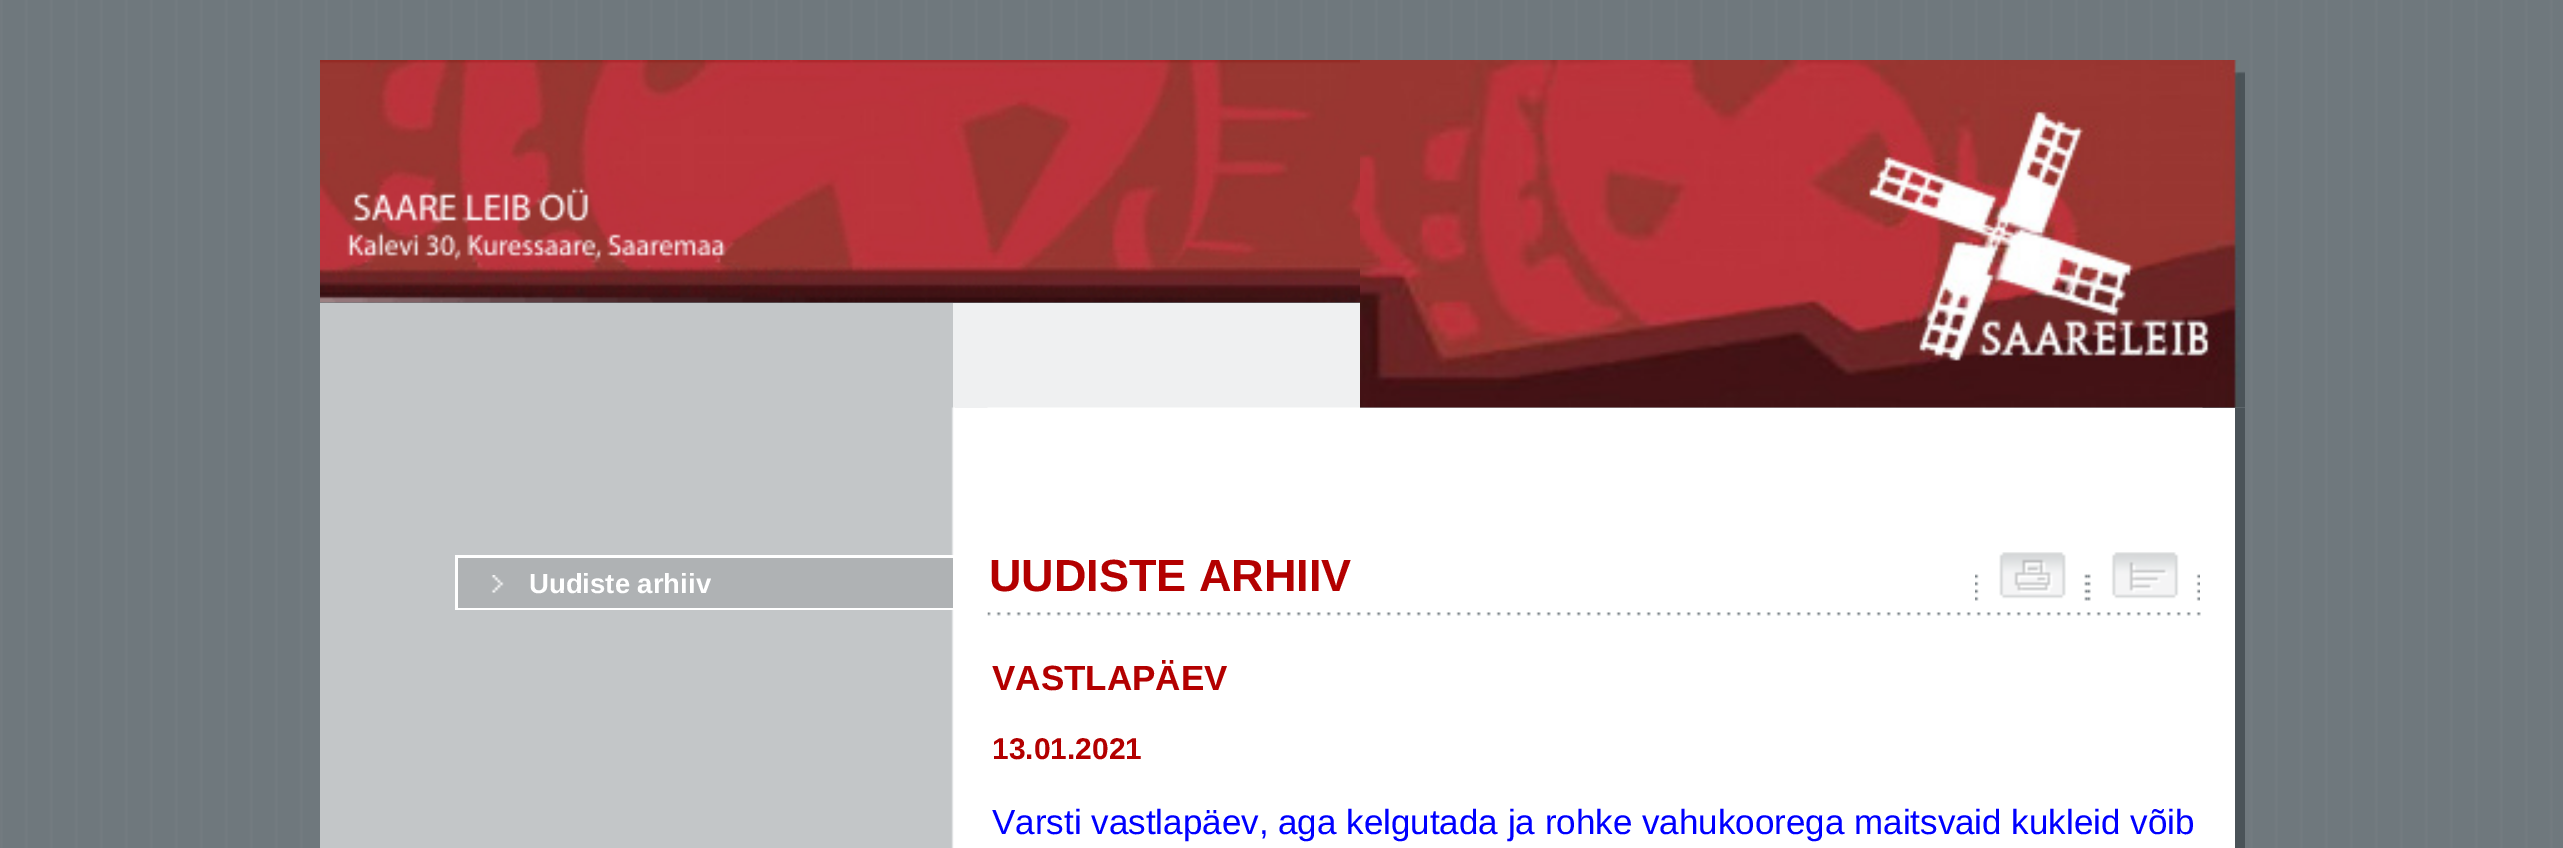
%!PS-Adobe-3.0
%%BoundingBox: 0 0 2563 848
%%LanguageLevel: 3
%%Pages: 1
%%EndComments
%%BeginProlog
/setink { 3 { 255 div 3 1 roll } repeat setrgbcolor } def
/usefont { [ exch dup neg 0 0 3 -1 roll 0 0 ] selectfont } def
/drawtext { setink usefont moveto show } def
/fillbox { setink rectfill } def
/drawimage { 5 dict begin { /h /w /y /x /name } { exch def } forall
  gsave x y translate w h scale
  w h 8 [w 0 0 h 0 0] name (r) file false 3 colorimage grestore end } def
%%EndProlog
%%BeginSetup
<< /PageSize [2563 848] >> setpagedevice
%%EndSetup
%%Page: 1 1
0 848 translate 1 -1 scale
4 setmiterlimit
0 0 2563 848 255 255 255 fillbox
(assets/img1.rgb) 0 0 2563 848 drawimage
(assets/img2.rgb) 320 60 1040 243 drawimage
953 303 407 105 239 240 241 fillbox
(assets/img6.rgb) 987 407 1216 1 drawimage
(assets/img3.rgb) 1360 60 885 348 drawimage
320 303 633 105 195 198 200 fillbox
320 408 631 440 195 198 200 fillbox
(assets/img4.rgb) 951 407 4 441 drawimage
455 555 499 55 255 255 255 fillbox
458 558 495 50 175 178 180 fillbox
(assets/img5.rgb) 491 575 13 18 drawimage
(Uudiste arhiiv) 529 593 /LiberationSans-Bold 27.5 255 255 255 drawtext
955 408 1280 440 255 255 255 fillbox
(UUDISTE ARHIIV) 989 591 /LiberationSans-Bold 45 179 0 0 drawtext
(assets/img7.rgb) 1975 552 113 49 drawimage
(assets/img8.rgb) 2087 552 113 49 drawimage
(assets/img9.rgb) 987 612 1214 4 drawimage
(VASTLAPÄEV) 992 690 /LiberationSans-Bold 35 179 0 0 drawtext
(13.01.2021) 992 759 /LiberationSans-Bold 30 179 0 0 drawtext
(Varsti vastlapäev, aga kelgutada ja rohke vahukoorega maitsvaid kukleid võib) 992 834 /LiberationSans-Regular 35 0 0 255 drawtext
2235 408 10 440 74 83 88 fillbox
showpage
%%EOF
